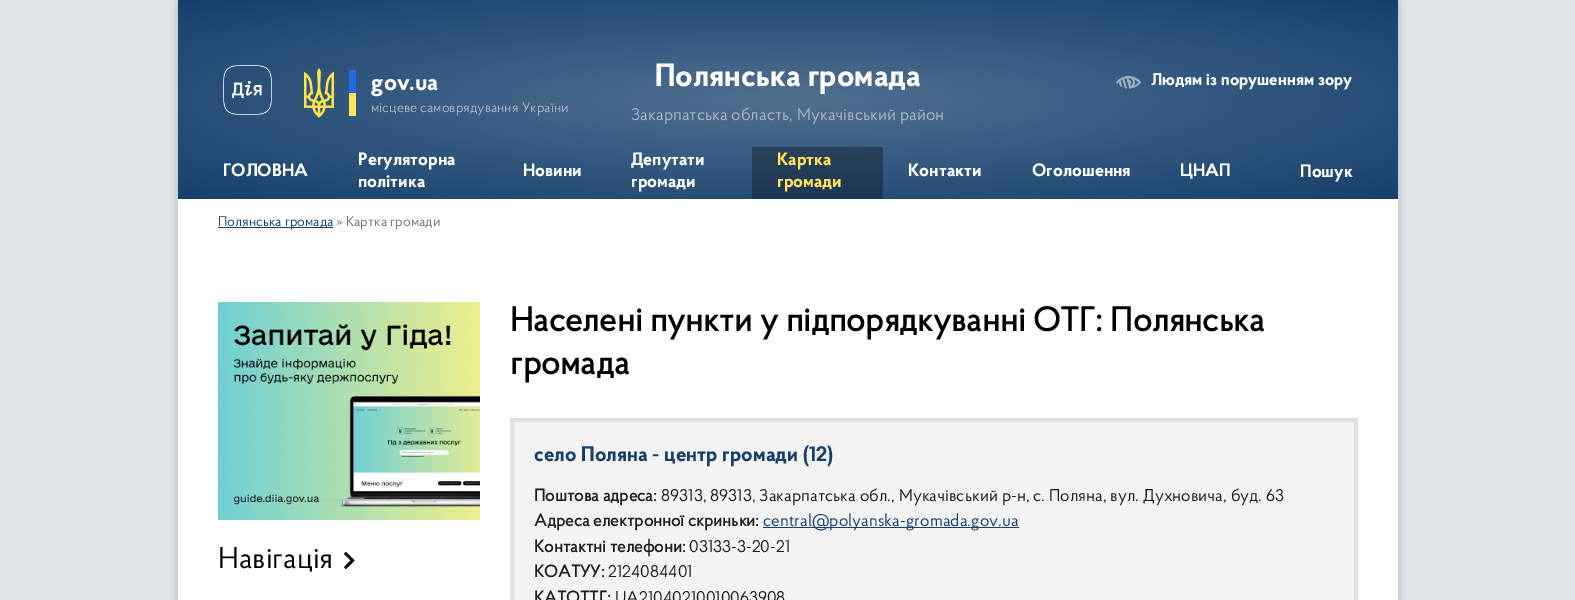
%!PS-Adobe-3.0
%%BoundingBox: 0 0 1575 600
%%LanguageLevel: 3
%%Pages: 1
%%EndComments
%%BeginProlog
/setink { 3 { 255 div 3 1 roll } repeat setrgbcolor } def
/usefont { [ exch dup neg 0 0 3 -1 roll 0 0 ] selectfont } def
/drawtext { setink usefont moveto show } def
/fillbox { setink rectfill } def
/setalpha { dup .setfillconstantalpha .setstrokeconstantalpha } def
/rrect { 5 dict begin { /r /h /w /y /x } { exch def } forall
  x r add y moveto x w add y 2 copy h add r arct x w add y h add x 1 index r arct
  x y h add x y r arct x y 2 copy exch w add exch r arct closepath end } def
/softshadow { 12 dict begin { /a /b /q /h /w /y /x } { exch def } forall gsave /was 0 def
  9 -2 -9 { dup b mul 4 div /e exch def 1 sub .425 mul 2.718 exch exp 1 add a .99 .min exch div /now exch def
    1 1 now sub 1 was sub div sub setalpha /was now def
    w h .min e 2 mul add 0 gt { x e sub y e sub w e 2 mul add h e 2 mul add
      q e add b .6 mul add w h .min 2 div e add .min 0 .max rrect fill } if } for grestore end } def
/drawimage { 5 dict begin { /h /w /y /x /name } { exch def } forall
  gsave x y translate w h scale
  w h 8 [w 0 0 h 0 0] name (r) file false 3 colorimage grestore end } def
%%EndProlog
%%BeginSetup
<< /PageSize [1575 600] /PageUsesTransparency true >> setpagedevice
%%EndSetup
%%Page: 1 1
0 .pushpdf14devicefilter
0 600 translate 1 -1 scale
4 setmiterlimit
0 0 1575 600 222 228 231 fillbox
0 0 0 setink
178 1 1220 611 0 4 0.2 softshadow
178 199 1220 401 255 255 255 fillbox
gsave 178 0 moveto 1398 0 lineto 1398 199 lineto 178 199 lineto closepath clip newpath 788 100 translate 863 141 scale
<< /ShadingType 3 /ColorSpace /DeviceRGB /Coords [0 0 0 0 0 1] /Extend [true true] /Function << /FunctionType 2 /Domain [0 1] /C0 [0.314 0.439 0.569] /C1 [0.086 0.251 0.424] /N 1 >> >> shfill grestore
gsave 752 147 moveto 883 147 lineto 883 199 lineto 752 199 lineto closepath clip newpath 788 100 translate 863 141 scale
<< /ShadingType 3 /ColorSpace /DeviceRGB /Coords [0 0 0 0 0 1] /Extend [true true] /Function << /FunctionType 2 /Domain [0 1] /C0 [0.22 0.306 0.4] /C1 [0.059 0.176 0.298] /N 1 >> >> shfill grestore
(assets/img1.rgb) 223 65 49 50 drawimage
(assets/img2.rgb) 304 68 30 50 drawimage
349 70 7 23 38 105 227 fillbox
349 93 7 23 255 227 88 fillbox
(gov.ua) 371 90 /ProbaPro-Bold 24 255 255 255 drawtext
(місцеве самоврядування України) 371 112 /ProbaPro-Regular 14 170 179 198 drawtext
(Полянська громада) 655 86 /ProbaPro-Bold 32 255 255 255 drawtext
(Закарпатська область, Мукачівський район) 631 120 /ProbaPro-Regular 17 170 179 198 drawtext
(assets/img3.rgb) 1116 76 25 13 drawimage
(Людям із порушенням зору) 1151 85 /ProbaPro-Bold 17 255 255 255 drawtext
(ГОЛОВНА) 223 176 /ProbaPro-Bold 18 255 255 255 drawtext
(Регуляторна) 358 165 /ProbaPro-Bold 18 255 255 255 drawtext
(політика) 358 187 /ProbaPro-Bold 18 255 255 255 drawtext
(Новини) 523 176 /ProbaPro-Bold 18 255 255 255 drawtext
(Депутати) 631 165 /ProbaPro-Bold 18 255 255 255 drawtext
(громади) 631 187 /ProbaPro-Bold 18 255 255 255 drawtext
(Картка) 777 165 /ProbaPro-Bold 18 255 227 88 drawtext
(громади) 777 187 /ProbaPro-Bold 18 255 227 88 drawtext
(Контакти) 908 176 /ProbaPro-Bold 18 255 255 255 drawtext
(Оголошення) 1032 176 /ProbaPro-Bold 18 255 255 255 drawtext
(ЦНАП) 1180 176 /ProbaPro-Bold 18 255 255 255 drawtext
(Пошук) 1300 177 /ProbaPro-Bold 18 255 255 255 drawtext
218 227 115 1 22 64 108 fillbox
(Полянська громада) 218 226 /ProbaPro-Regular 14 22 64 108 drawtext
(» Картка громади) 336 226 /ProbaPro-Regular 14 109 115 129 drawtext
(assets/img4.rgb) 218 302 262 218 drawimage
(Навігація) 218 568 /ProbaPro-Regular 30 0 0 0 drawtext
(assets/img5.rgb) 344 552 11 17 drawimage
(Населені пункти у підпорядкуванні ОТГ: Полянська) 510 331 /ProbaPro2-Bold 34 0 0 0 drawtext
(громада) 510 374 /ProbaPro2-Bold 34 0 0 0 drawtext
243 243 243 setink
512 420 moveto 1356 420 lineto 1356 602 lineto 512 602 lineto closepath gsave fill grestore
225 225 225 setink
4 setlinewidth
stroke
(село Поляна - центр громади \(12\)) 534 461 /ProbaPro-Bold 21 22 64 108 drawtext
(Поштова адреса:) 534 501 /ProbaPro2-Bold 17 29 29 27 drawtext
(89313, 89313, Закарпатська обл., Мукачівський р-н, с. Поляна, вул. Духновича, буд. 63) 661 501 /ProbaPro-Regular 17 29 29 27 drawtext
(Адреса електронної скриньки:) 534 526 /ProbaPro2-Bold 17 29 29 27 drawtext
763 527 256 1 22 64 108 fillbox
(central@polyanska-gromada.gov.ua) 763 526 /ProbaPro-Regular 17 22 64 108 drawtext
(Контактні телефони:) 534 552 /ProbaPro2-Bold 17 29 29 27 drawtext
(03133-3-20-21) 689 552 /ProbaPro-Regular 17 29 29 27 drawtext
(КОАТУУ:) 534 577 /ProbaPro2-Bold 17 29 29 27 drawtext
(2124084401) 608 577 /ProbaPro-Regular 17 29 29 27 drawtext
(КАТОТТГ:) 534 603 /ProbaPro2-Bold 17 29 29 27 drawtext
(UA21040210010063908) 615 603 /ProbaPro-Regular 17 29 29 27 drawtext
.poppdf14devicefilter showpage
%%EOF
